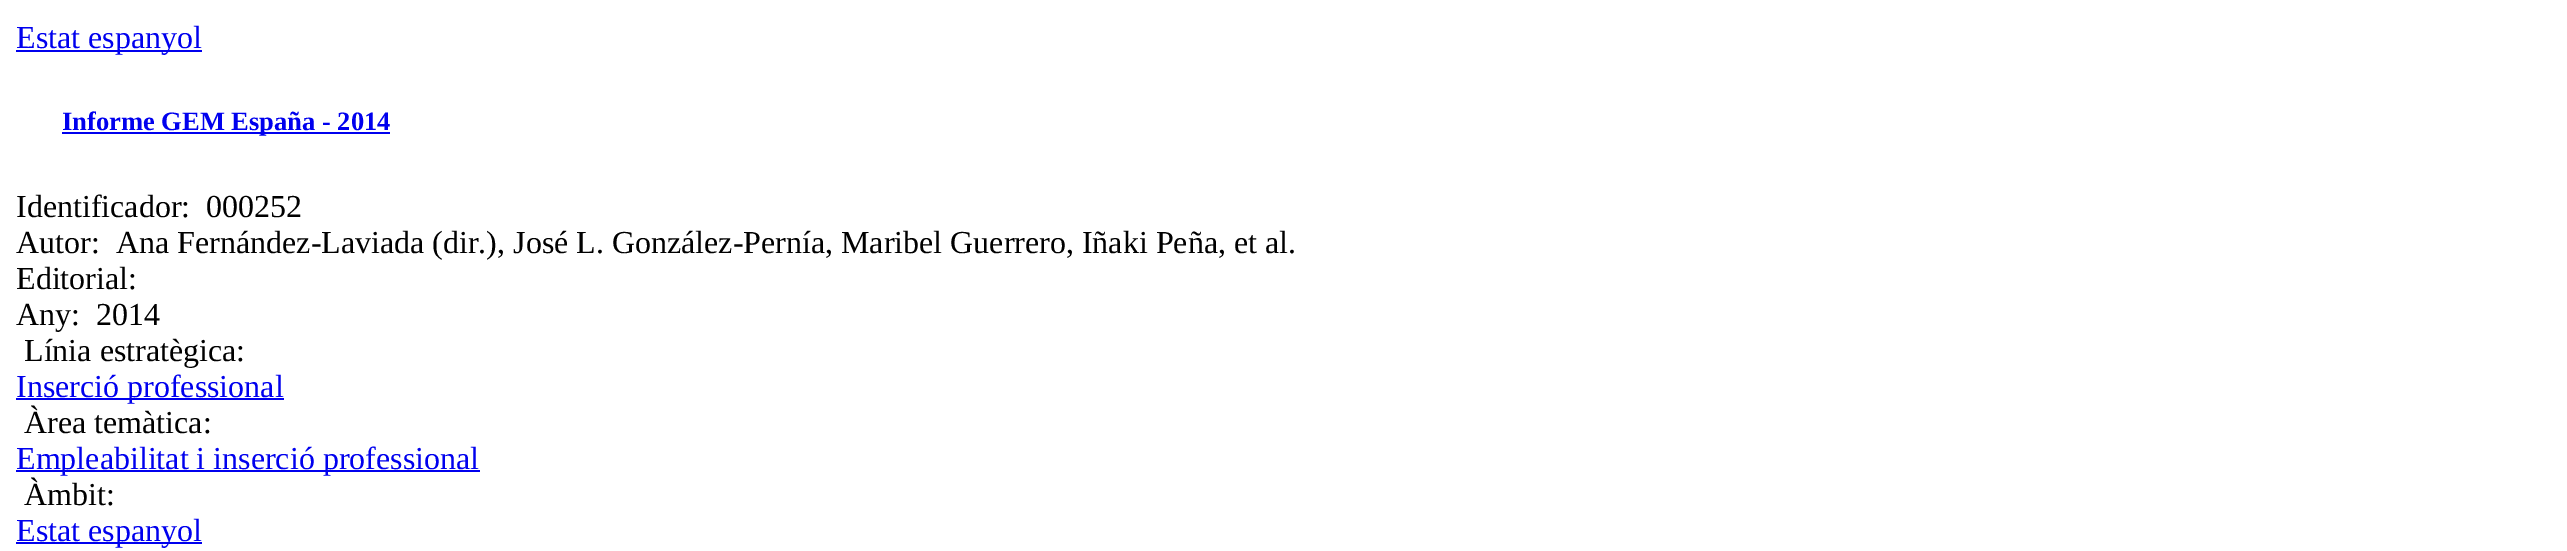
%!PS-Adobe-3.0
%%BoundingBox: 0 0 2567 551
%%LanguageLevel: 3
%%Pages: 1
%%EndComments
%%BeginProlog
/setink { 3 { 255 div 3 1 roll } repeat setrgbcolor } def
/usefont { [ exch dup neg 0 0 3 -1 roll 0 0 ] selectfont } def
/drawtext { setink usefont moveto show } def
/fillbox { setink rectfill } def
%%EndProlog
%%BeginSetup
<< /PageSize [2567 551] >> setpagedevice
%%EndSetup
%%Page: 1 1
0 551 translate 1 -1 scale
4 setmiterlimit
0 0 2567 551 255 255 255 fillbox
16 50 186 2 0 0 238 fillbox
(Estat espanyol) 16 48 /LiberationSerif-Regular 32 0 0 238 drawtext
62 132 328 2 0 0 238 fillbox
(Informe GEM España - 2014) 62 130 /LiberationSerif-Bold 26.5 0 0 238 drawtext
(Identificador:) 16 217 /LiberationSerif-Regular 32 0 0 0 drawtext
(000252) 206 217 /LiberationSerif-Regular 32 0 0 0 drawtext
(Autor:) 16 253 /LiberationSerif-Regular 32 0 0 0 drawtext
(Ana Fernández-Laviada \(dir.\), José L. González-Pernía, Maribel Guerrero, Iñaki Peña, et al.) 116 253 /LiberationSerif-Regular 32 0 0 0 drawtext
(Editorial:) 16 289 /LiberationSerif-Regular 32 0 0 0 drawtext
(Any:) 16 325 /LiberationSerif-Regular 32 0 0 0 drawtext
(2014) 96 325 /LiberationSerif-Regular 32 0 0 0 drawtext
(Línia estratègica:) 24 361 /LiberationSerif-Regular 32 0 0 0 drawtext
16 398 268 2 0 0 238 fillbox
(Inserció professional) 16 397 /LiberationSerif-Regular 32 0 0 238 drawtext
(Àrea temàtica:) 24 433 /LiberationSerif-Regular 32 0 0 0 drawtext
16 470 464 2 0 0 238 fillbox
(Empleabilitat i inserció professional) 16 469 /LiberationSerif-Regular 32 0 0 238 drawtext
(Àmbit:) 24 505 /LiberationSerif-Regular 32 0 0 0 drawtext
16 542 186 2 0 0 238 fillbox
(Estat espanyol) 16 541 /LiberationSerif-Regular 32 0 0 238 drawtext
showpage
%%EOF
